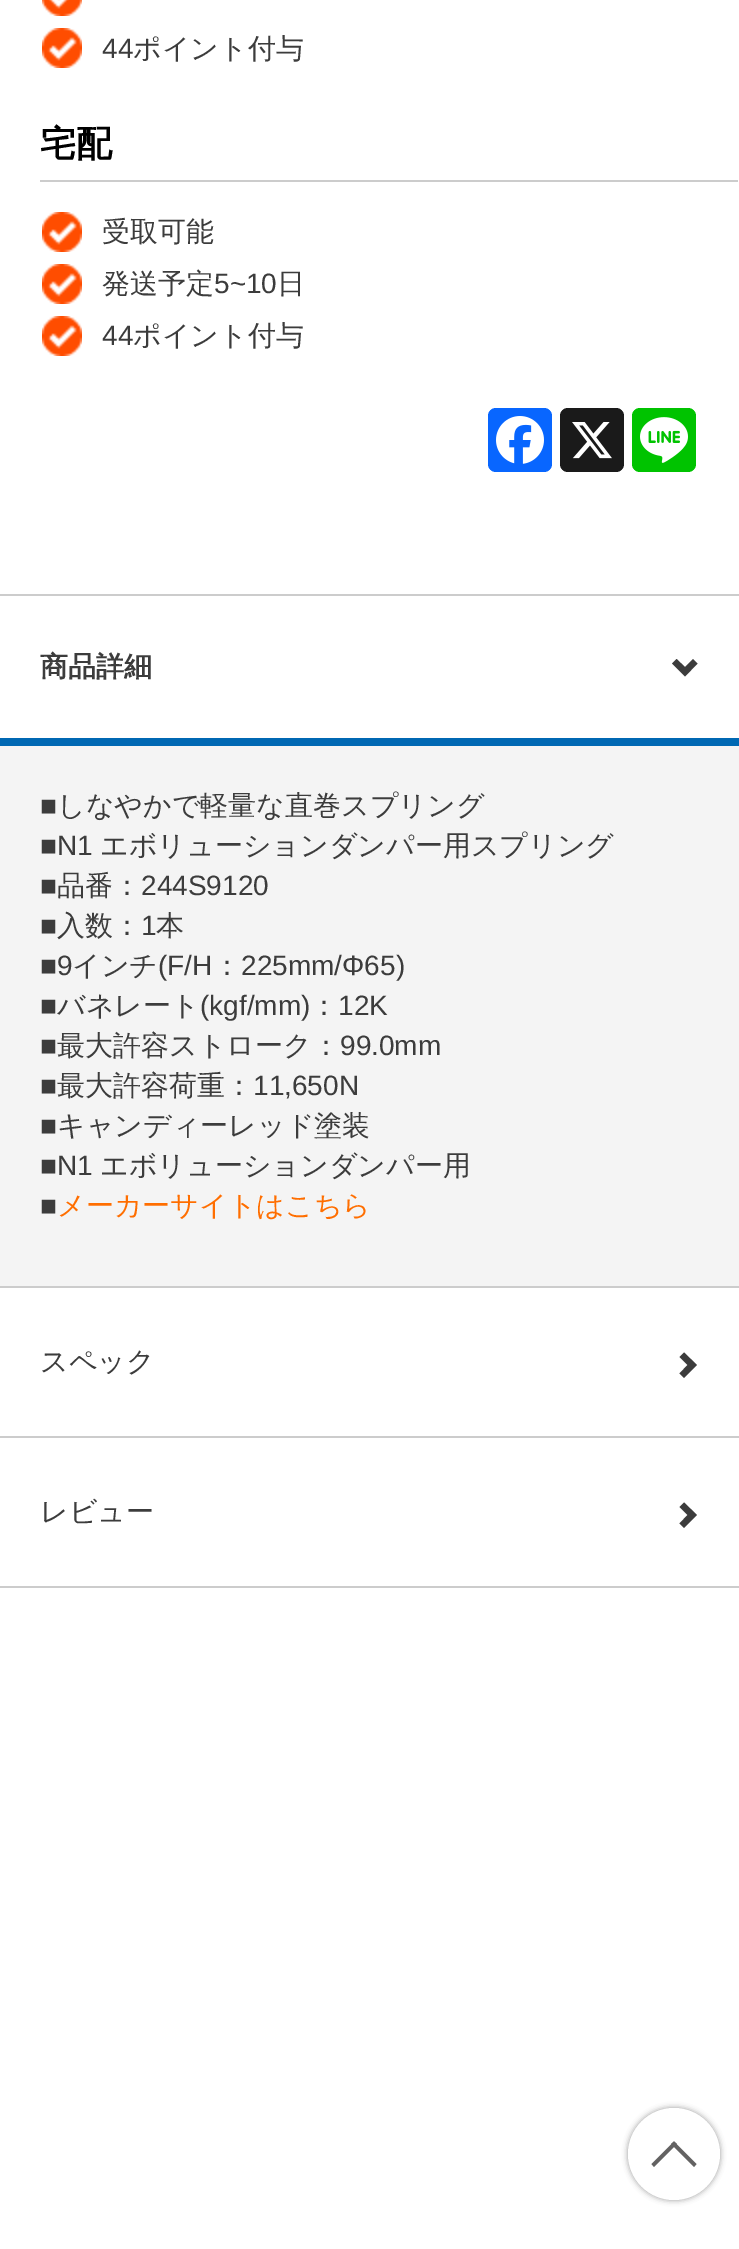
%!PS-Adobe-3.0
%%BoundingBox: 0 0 739 2249
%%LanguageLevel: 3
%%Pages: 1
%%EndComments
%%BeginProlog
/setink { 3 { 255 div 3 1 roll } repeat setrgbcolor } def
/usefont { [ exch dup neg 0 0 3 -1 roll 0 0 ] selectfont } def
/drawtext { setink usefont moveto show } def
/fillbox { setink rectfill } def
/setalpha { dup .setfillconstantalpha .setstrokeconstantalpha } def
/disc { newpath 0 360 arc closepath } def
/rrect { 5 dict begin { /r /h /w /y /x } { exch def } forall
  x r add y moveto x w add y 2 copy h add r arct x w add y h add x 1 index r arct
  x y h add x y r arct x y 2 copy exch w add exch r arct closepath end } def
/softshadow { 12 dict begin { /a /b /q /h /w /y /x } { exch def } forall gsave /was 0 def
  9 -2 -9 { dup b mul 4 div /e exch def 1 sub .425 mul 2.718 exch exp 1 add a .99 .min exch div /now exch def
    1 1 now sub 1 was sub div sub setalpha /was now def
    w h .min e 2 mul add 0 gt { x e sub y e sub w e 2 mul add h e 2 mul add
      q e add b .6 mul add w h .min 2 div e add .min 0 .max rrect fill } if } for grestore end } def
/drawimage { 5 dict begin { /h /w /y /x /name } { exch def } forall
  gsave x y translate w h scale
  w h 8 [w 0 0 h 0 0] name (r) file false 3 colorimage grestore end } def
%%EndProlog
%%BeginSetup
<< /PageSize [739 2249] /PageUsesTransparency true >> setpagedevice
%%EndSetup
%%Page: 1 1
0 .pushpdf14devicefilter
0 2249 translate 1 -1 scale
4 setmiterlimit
0 0 739 2249 255 255 255 fillbox
(assets/img1.rgb) 42 0 40 16 drawimage
(assets/img2.rgb) 42 28 40 40 drawimage
(44) 102 58 /LiberationSans-Regular 28 60 60 60 drawtext
(ポイント付与) 133 58 /WenQuanYiZenHei-Medium 28 60 60 60 drawtext
40 180 698 2 204 204 204 fillbox
(宅配) 40 156 /WenQuanYiZenHei-Bold 36 0 0 0 drawtext
(assets/img2.rgb) 42 212 40 40 drawimage
(受取可能) 102 241 /WenQuanYiZenHei-Medium 28 60 60 60 drawtext
(assets/img2.rgb) 42 264 40 40 drawimage
(発送予定) 102 293 /WenQuanYiZenHei-Medium 28 60 60 60 drawtext
(5~10) 214 293 /LiberationSans-Regular 28 60 60 60 drawtext
(日) 277 293 /WenQuanYiZenHei-Medium 28 60 60 60 drawtext
(assets/img2.rgb) 42 316 40 40 drawimage
(44) 102 345 /LiberationSans-Regular 28 60 60 60 drawtext
(ポイント付与) 133 345 /WenQuanYiZenHei-Medium 28 60 60 60 drawtext
8 102 255 setink
488 408 64 64 8 rrect fill
(assets/img3.rgb) 496 416 48 48 drawimage
26 26 26 setink
560 408 64 64 8 rrect fill
(assets/img4.rgb) 572 422 40 37 drawimage
0 195 0 setink
632 408 64 64 8 rrect fill
(assets/img5.rgb) 640 417 48 46 drawimage
0 594 739 2 204 204 204 fillbox
0 738 739 8 0 104 179 fillbox
(商品詳細) 40 676 /WenQuanYiZenHei-Bold 28 60 60 60 drawtext
697.5 663.5 moveto 685 676.5 lineto 672 663.5 lineto 676.5 659 lineto 685 667 lineto 693 659 lineto closepath fill
0 746 739 540 244 244 244 fillbox
0 1286 739 2 204 204 204 fillbox
(■) 40 815 /LiberationSans-Regular 28 60 60 60 drawtext
(しなやかで軽量な直巻スプリング) 57 815 /WenQuanYiZenHei-Medium 28 60 60 60 drawtext
(■N1) 40 855 /LiberationSans-Regular 28 60 60 60 drawtext
(エボリューションダンパー用スプリング) 100 855 /WenQuanYiZenHei-Medium 28 60 60 60 drawtext
(■) 40 895 /LiberationSans-Regular 28 60 60 60 drawtext
(品番：) 57 895 /WenQuanYiZenHei-Medium 28 60 60 60 drawtext
(244S9120) 141 895 /LiberationSans-Regular 28 60 60 60 drawtext
(■) 40 935 /LiberationSans-Regular 28 60 60 60 drawtext
(入数：) 57 935 /WenQuanYiZenHei-Medium 28 60 60 60 drawtext
(1) 141 935 /LiberationSans-Regular 28 60 60 60 drawtext
(本) 156 935 /WenQuanYiZenHei-Medium 28 60 60 60 drawtext
(■9) 40 975 /LiberationSans-Regular 28 60 60 60 drawtext
(インチ) 72 975 /WenQuanYiZenHei-Medium 28 60 60 60 drawtext
(\(F/H) 158 975 /LiberationSans-Regular 28 60 60 60 drawtext
(：) 213 975 /WenQuanYiZenHei-Medium 28 60 60 60 drawtext
(225mm/Φ65\)) 241 975 /LiberationSans-Regular 28 60 60 60 drawtext
(■) 40 1015 /LiberationSans-Regular 28 60 60 60 drawtext
(バネレート) 57 1015 /WenQuanYiZenHei-Medium 28 60 60 60 drawtext
(\(kgf/mm\)) 200 1015 /LiberationSans-Regular 28 60 60 60 drawtext
(：) 310 1015 /WenQuanYiZenHei-Medium 28 60 60 60 drawtext
(12K) 338 1015 /LiberationSans-Regular 28 60 60 60 drawtext
(■) 40 1055 /LiberationSans-Regular 28 60 60 60 drawtext
(最大許容ストローク：) 57 1055 /WenQuanYiZenHei-Medium 28 60 60 60 drawtext
(99.0mm) 340 1055 /LiberationSans-Regular 28 60 60 60 drawtext
(■) 40 1095 /LiberationSans-Regular 28 60 60 60 drawtext
(最大許容荷重：) 57 1095 /WenQuanYiZenHei-Medium 28 60 60 60 drawtext
(11,650N) 253 1095 /LiberationSans-Regular 28 60 60 60 drawtext
(■) 40 1135 /LiberationSans-Regular 28 60 60 60 drawtext
(キャンディーレッド塗装) 57 1135 /WenQuanYiZenHei-Medium 28 60 60 60 drawtext
(■N1) 40 1175 /LiberationSans-Regular 28 60 60 60 drawtext
(エボリューションダンパー用) 100 1175 /WenQuanYiZenHei-Medium 28 60 60 60 drawtext
(■) 40 1215 /LiberationSans-Regular 28 60 60 60 drawtext
(メーカーサイトはこちら) 57 1215 /WenQuanYiZenHei-Medium 28 255 110 0 drawtext
0 1436 739 2 204 204 204 fillbox
(スペック) 40 1371 /WenQuanYiZenHei-Medium 28 60 60 60 drawtext
697 1365 moveto 684 1378 lineto 679.5 1373.5 lineto 687.5 1365 lineto 679.5 1357 lineto 684 1352.5 lineto closepath fill
0 1586 739 2 204 204 204 fillbox
(レビュー) 40 1521 /WenQuanYiZenHei-Medium 28 60 60 60 drawtext
697 1515 moveto 684 1528 lineto 679.5 1523.5 lineto 687.5 1515 lineto 679.5 1507 lineto 684 1502.5 lineto closepath fill
0 0 0 setink
628 2108 92 92 46 3 0.4 softshadow
255 255 255 setink
674 2154 46 disc fill
99 98 98 setink
674 2141.5 moveto 696.5 2164 lineto 694 2167 lineto 671 2144 lineto closepath fill
674 2141.5 moveto 677 2144 lineto 654 2167 lineto 651.5 2164 lineto closepath fill
.poppdf14devicefilter showpage
%%EOF
